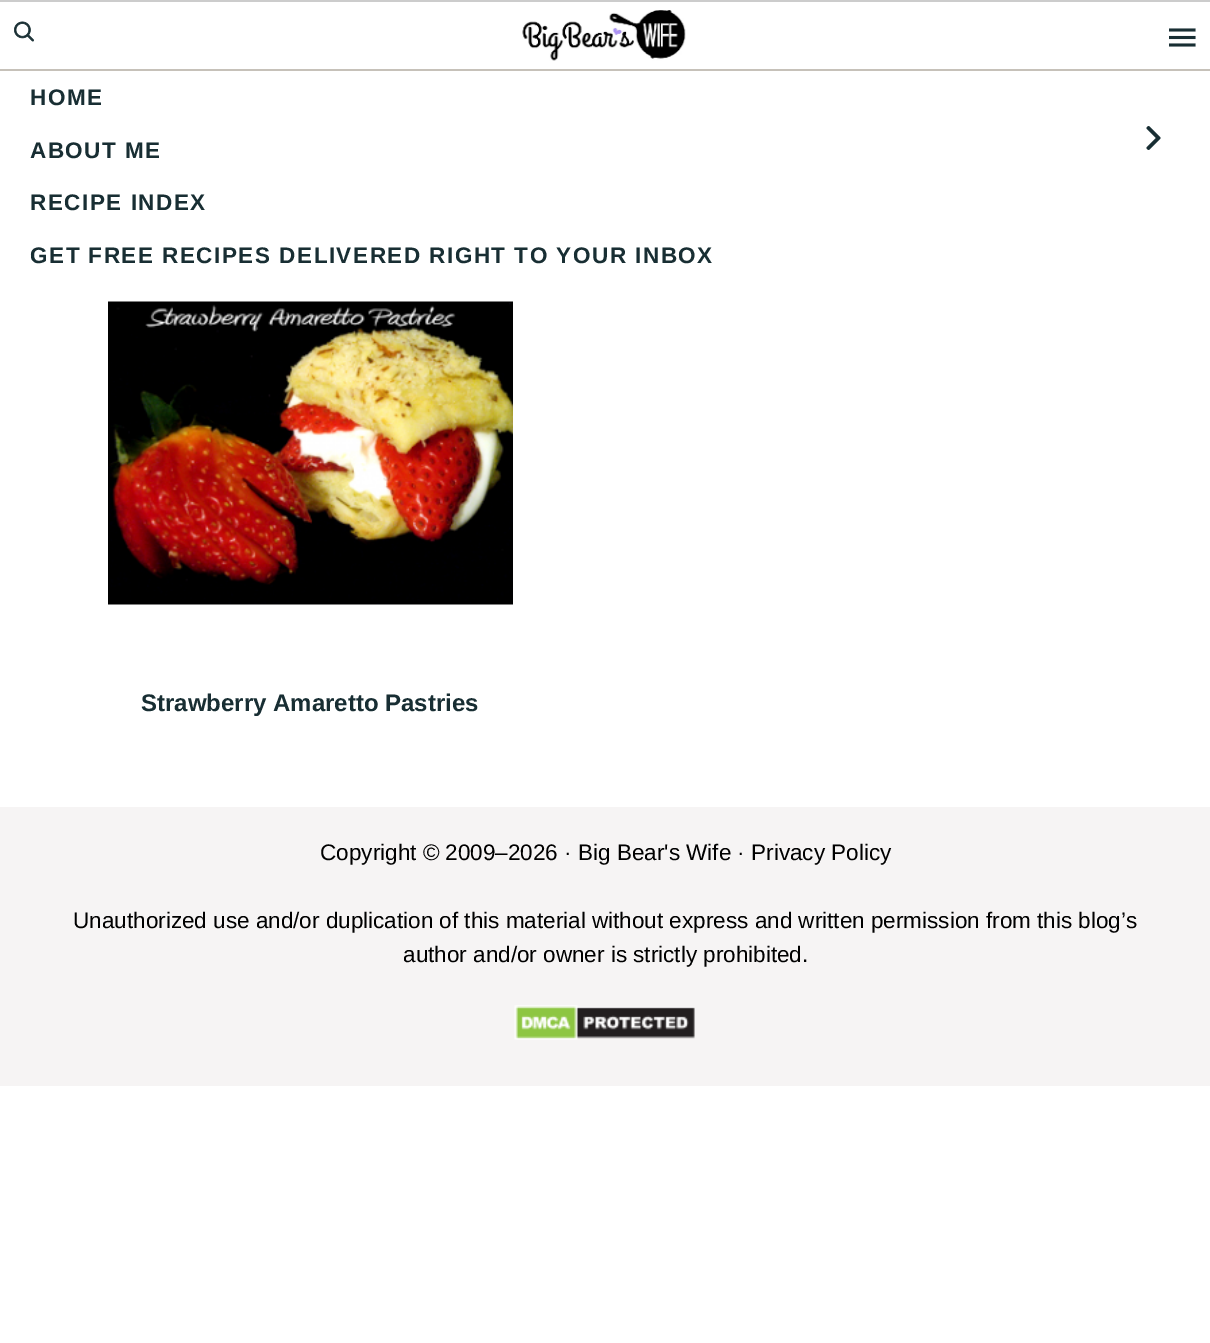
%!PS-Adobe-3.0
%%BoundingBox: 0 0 1210 1343
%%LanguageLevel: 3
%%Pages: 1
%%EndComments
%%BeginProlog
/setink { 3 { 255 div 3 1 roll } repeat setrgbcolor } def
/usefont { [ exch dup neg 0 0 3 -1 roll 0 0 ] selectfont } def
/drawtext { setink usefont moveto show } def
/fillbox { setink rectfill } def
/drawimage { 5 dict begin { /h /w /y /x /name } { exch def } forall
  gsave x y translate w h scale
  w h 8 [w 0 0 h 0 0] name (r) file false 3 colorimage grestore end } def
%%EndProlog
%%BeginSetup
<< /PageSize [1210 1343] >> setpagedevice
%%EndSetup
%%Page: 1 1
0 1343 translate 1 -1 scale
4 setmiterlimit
0 0 1210 1343 255 255 255 fillbox
0 0 1210 2 204 204 204 fillbox
(assets/img1.rgb) 14 21 20 21 drawimage
(assets/img2.rgb) 522 10 164 51 drawimage
(assets/img3.rgb) 1169 28 27 19 drawimage
0 69 1210 2 198 193 185 fillbox
/LiberationSans-Bold 22.5 usefont
24 46 51 setink
30 105 moveto 1.5 0 (HOME) ashow
30 158 moveto 1.5 0 (ABOUT ME) ashow
(assets/img4.rgb) 1146 126 15 24 drawimage
30 210 moveto 1.5 0 (RECIPE INDEX) ashow
30 263 moveto 1.5 0 (GET FREE RECIPES DELIVERED RIGHT TO YOUR INBOX) ashow
(assets/img5.rgb) 108 301 405 304 drawimage
(Strawberry Amaretto Pastries) 141 711 /LiberationSans-Bold 24 24 46 51 drawtext
0 807 1210 279 246 244 244 fillbox
(Copyright © 2009–2026 · Big Bear's Wife · Privacy Policy) 320 860 /LiberationSans-Regular 22.5 0 0 0 drawtext
(Unauthorized use and/or duplication of this material without express and written permission from this blog’s) 73 928 /LiberationSans-Regular 22.5 0 0 0 drawtext
(author and/or owner is strictly prohibited.) 403 962 /LiberationSans-Regular 22.5 0 0 0 drawtext
(assets/img6.rgb) 514 1005 181 35 drawimage
showpage
%%EOF
